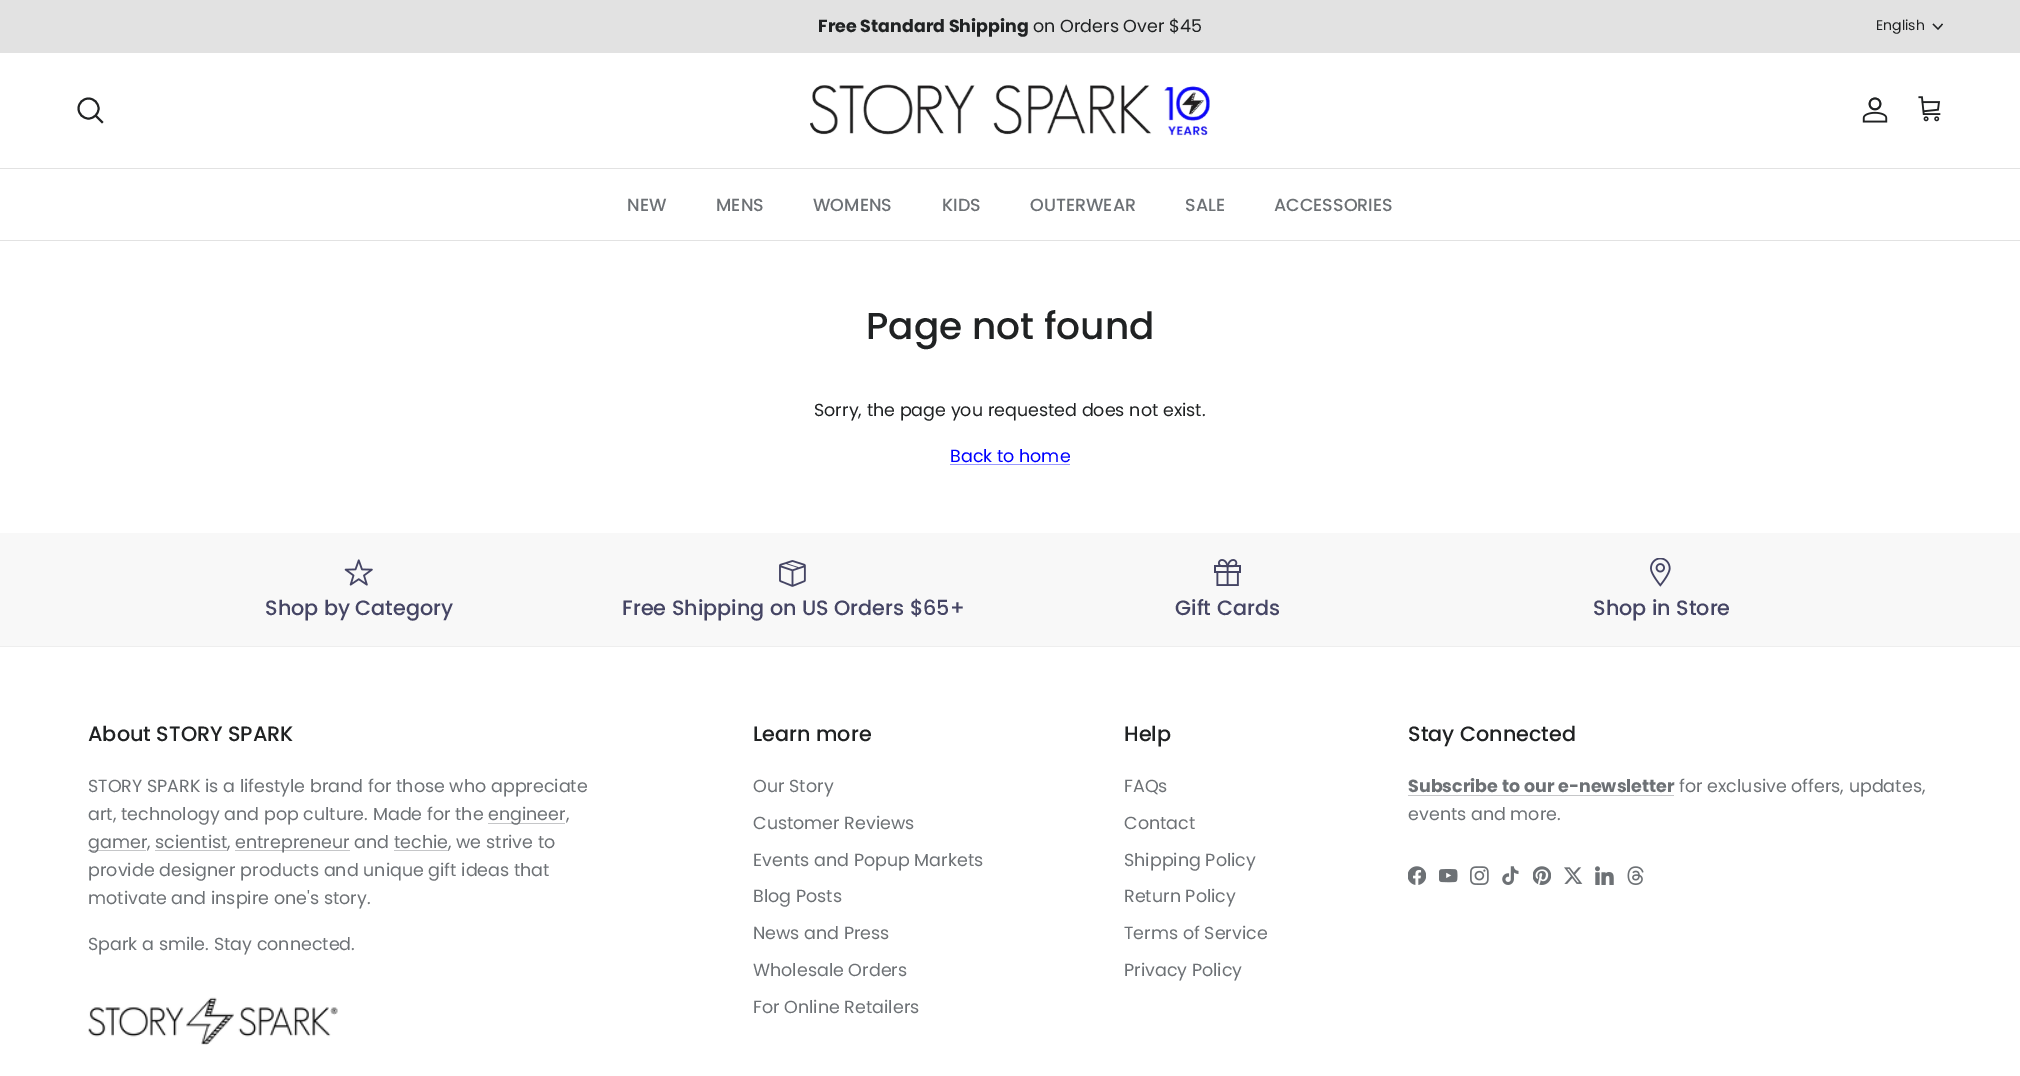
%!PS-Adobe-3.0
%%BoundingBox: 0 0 2020 1076
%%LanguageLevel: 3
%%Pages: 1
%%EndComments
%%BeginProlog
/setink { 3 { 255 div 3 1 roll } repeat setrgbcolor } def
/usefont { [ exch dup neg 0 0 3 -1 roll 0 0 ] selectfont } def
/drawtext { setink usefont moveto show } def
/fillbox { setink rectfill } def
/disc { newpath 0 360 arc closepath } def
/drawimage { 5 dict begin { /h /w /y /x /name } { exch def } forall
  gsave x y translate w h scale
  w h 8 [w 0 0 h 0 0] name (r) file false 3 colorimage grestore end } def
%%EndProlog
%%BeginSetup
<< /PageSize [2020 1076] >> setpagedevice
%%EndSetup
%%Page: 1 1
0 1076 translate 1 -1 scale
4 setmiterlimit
0 0 2020 1076 255 255 255 fillbox
0 0 2020 53 226 226 226 fillbox
(Free Standard Shipping) 818 32 /Poppins-Bold 17.5 32 34 35 drawtext
(on Orders Over $45) 1033 32 /Poppins-Regular 17.5 32 34 35 drawtext
(English) 1876 30 /Poppins-Regular 14 32 34 35 drawtext
1.2 setlinewidth
1942.5 24 moveto 1938 29 lineto 1933 24 lineto stroke
0 168 2020 1 226 226 226 fillbox
32 34 35 setink
1.9 setlinewidth
88.5 108.5 10 disc stroke
2 setlinecap
96 116 moveto 102 122 lineto stroke
(assets/img1.rgb) 810 84 400 52 drawimage
(assets/img2.rgb) 1862 97 26 26 drawimage
(assets/img3.rgb) 1918 96 23 26 drawimage
0 240 2020 1 226 226 226 fillbox
(NEW) 627 211 /Poppins-Medium 17.5 109 113 117 drawtext
(MENS) 716 211 /Poppins-Medium 17.5 109 113 117 drawtext
(WOMENS) 813 211 /Poppins-Medium 17.5 109 113 117 drawtext
(KIDS) 942 211 /Poppins-Medium 17.5 109 113 117 drawtext
(OUTERWEAR) 1030 211 /Poppins-Medium 17.5 109 113 117 drawtext
(SALE) 1185 211 /Poppins-Medium 17.5 109 113 117 drawtext
(ACCESSORIES) 1274 211 /Poppins-Medium 17.5 109 113 117 drawtext
(Page not found) 866 339 /Poppins-Medium 37.5 32 34 35 drawtext
(Sorry, the page you requested does not exist.) 814 416 /Poppins-Regular 17.5 32 34 35 drawtext
(Back to home) 950 462 /Poppins-Regular 17.5 0 0 255 drawtext
950 464 120 1 153 153 255 fillbox
0 533 2020 113 248 248 248 fillbox
(assets/img4.rgb) 344 559 29 27 drawimage
(Shop by Category) 265 615 /Poppins-Medium 20.75 69 69 100 drawtext
(assets/img5.rgb) 779 560 27 27 drawimage
(Free Shipping on US Orders $65+) 622 615 /Poppins-Medium 20.75 69 69 100 drawtext
(assets/img6.rgb) 1214 559 27 27 drawimage
(Gift Cards) 1175 615 /Poppins-Medium 20.75 69 69 100 drawtext
(assets/img7.rgb) 1650 558 21 29 drawimage
(Shop in Store) 1593 615 /Poppins-Medium 20.75 69 69 100 drawtext
0 646 2020 1 238 238 238 fillbox
(About STORY SPARK) 88 741 /Poppins-Medium 20.75 32 34 35 drawtext
(STORY SPARK is a lifestyle brand for those who appreciate) 88 792 /Poppins-Regular 17.5 109 113 117 drawtext
(art, technology and pop culture. Made for the) 88 820 /Poppins-Regular 17.5 109 113 117 drawtext
488 823 77 1 197 198 200 fillbox
(engineer,) 488 820 /Poppins-Regular 17.5 109 113 117 drawtext
88 850 58 1 197 198 200 fillbox
(gamer, scientist) 88 848 /Poppins-Regular 17.5 109 113 117 drawtext
155 850 73 1 197 198 200 fillbox
(,) 227 848 /Poppins-Regular 17.5 109 113 117 drawtext
235 850 115 1 197 198 200 fillbox
(entrepreneur and techie) 235 848 /Poppins-Regular 17.5 109 113 117 drawtext
394 850 55 1 197 198 200 fillbox
(, we strive to) 448 848 /Poppins-Regular 17.5 109 113 117 drawtext
(provide designer products and unique gift ideas that) 88 876 /Poppins-Regular 17.5 109 113 117 drawtext
(motivate and inspire one's story.) 88 904 /Poppins-Regular 17.5 109 113 117 drawtext
(Spark a smile. Stay connected.) 88 950 /Poppins-Regular 17.5 109 113 117 drawtext
(assets/img8.rgb) 88 997 250 48 drawimage
(Learn more) 753 741 /Poppins-Medium 20.75 32 34 35 drawtext
(Our Story) 753 792 /Poppins-Regular 17.5 109 113 117 drawtext
(Customer Reviews) 753 829 /Poppins-Regular 17.5 109 113 117 drawtext
(Events and Popup Markets) 753 866 /Poppins-Regular 17.5 109 113 117 drawtext
(Blog Posts) 753 902 /Poppins-Regular 17.5 109 113 117 drawtext
(News and Press) 753 939 /Poppins-Regular 17.5 109 113 117 drawtext
(Wholesale Orders) 753 976 /Poppins-Regular 17.5 109 113 117 drawtext
(For Online Retailers) 753 1013 /Poppins-Regular 17.5 109 113 117 drawtext
(Help) 1124 741 /Poppins-Medium 20.75 32 34 35 drawtext
(FAQs) 1124 792 /Poppins-Regular 17.5 109 113 117 drawtext
(Contact) 1124 829 /Poppins-Regular 17.5 109 113 117 drawtext
(Shipping Policy) 1124 866 /Poppins-Regular 17.5 109 113 117 drawtext
(Return Policy) 1124 902 /Poppins-Regular 17.5 109 113 117 drawtext
(Terms of Service) 1124 939 /Poppins-Regular 17.5 109 113 117 drawtext
(Privacy Policy) 1124 976 /Poppins-Regular 17.5 109 113 117 drawtext
(Stay Connected) 1408 741 /Poppins-Medium 20.75 32 34 35 drawtext
(Subscribe to our e-newsletter) 1408 792 /Poppins-Bold 17.5 109 113 117 drawtext
1408 795 266 1 197 198 200 fillbox
(for exclusive offers, updates,) 1679 792 /Poppins-Regular 17.5 109 113 117 drawtext
(events and more.) 1408 820 /Poppins-Regular 17.5 109 113 117 drawtext
(assets/img9.rgb) 1408 866 18 19 drawimage
(assets/img10.rgb) 1439 869 19 14 drawimage
(assets/img11.rgb) 1470 866 19 19 drawimage
(assets/img12.rgb) 1502 866 17 19 drawimage
(assets/img13.rgb) 1533 866 18 19 drawimage
(assets/img14.rgb) 1564 867 19 17 drawimage
(assets/img15.rgb) 1595 866 19 19 drawimage
(assets/img16.rgb) 1627 866 17 19 drawimage
showpage
%%EOF
